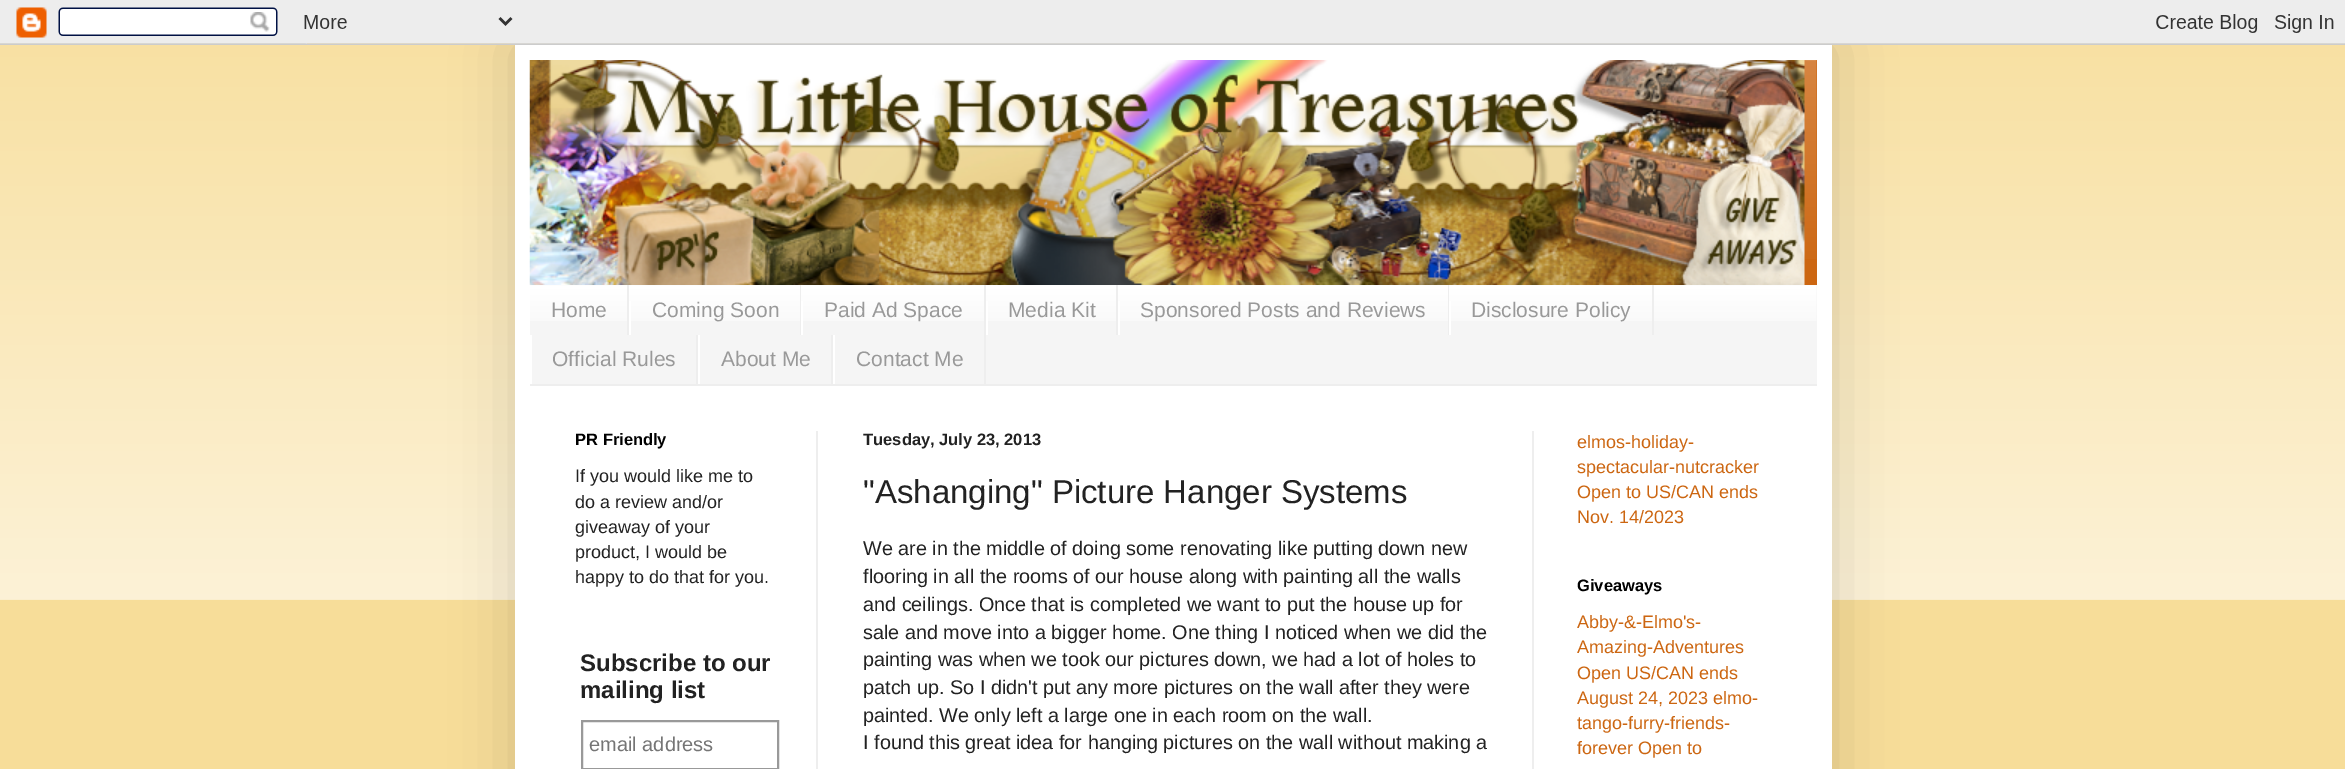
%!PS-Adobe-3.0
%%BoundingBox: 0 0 2345 769
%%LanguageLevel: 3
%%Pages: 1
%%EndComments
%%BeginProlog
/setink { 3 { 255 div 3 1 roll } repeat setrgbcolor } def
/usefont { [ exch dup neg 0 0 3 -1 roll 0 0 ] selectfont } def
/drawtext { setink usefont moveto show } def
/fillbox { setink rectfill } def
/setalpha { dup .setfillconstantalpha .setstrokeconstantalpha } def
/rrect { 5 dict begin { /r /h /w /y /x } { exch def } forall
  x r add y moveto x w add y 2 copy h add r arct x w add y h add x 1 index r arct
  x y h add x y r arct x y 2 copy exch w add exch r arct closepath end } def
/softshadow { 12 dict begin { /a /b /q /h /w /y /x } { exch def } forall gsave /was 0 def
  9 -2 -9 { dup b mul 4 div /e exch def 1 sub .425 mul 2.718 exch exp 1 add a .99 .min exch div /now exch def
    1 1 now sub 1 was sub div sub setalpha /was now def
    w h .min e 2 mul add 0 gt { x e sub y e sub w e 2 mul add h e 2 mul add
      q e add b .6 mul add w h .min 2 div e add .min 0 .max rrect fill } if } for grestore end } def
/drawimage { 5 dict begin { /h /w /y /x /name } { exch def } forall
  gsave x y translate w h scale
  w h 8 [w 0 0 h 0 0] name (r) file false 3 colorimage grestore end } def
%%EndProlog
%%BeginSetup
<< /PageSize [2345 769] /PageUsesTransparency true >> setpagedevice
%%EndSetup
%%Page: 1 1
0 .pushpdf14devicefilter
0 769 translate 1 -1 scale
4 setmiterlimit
0 0 2345 769 247 221 153 fillbox
(assets/img2.rgb) 0 43 2345 557 drawimage
0 0 0 setink
515 45 1317 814 0 30 0.15 softshadow
(assets/img1.rgb) 0 0 2345 45 drawimage
515 45 1317 724 255 255 255 fillbox
1804 60 13 225 204 102 17 fillbox
(assets/img3.rgb) 1804 60 13 199 drawimage
(assets/img4.rgb) 529 60 1276 225 drawimage
530 285 1287 99 245 245 245 fillbox
(assets/img5.rgb) 530 285 1287 36 drawimage
530 384 1287 2 238 238 238 fillbox
627 285 2 50 238 238 238 fillbox
(Home) 551 317 /LiberationSans-Regular 21 153 153 153 drawtext
800 285 1 50 238 238 238 fillbox
629 301 2 34 255 255 255 fillbox
(Coming Soon) 652 317 /LiberationSans-Regular 21 153 153 153 drawtext
984 285 2 99 238 238 238 fillbox
801 301 2 34 255 255 255 fillbox
(Paid Ad Space) 824 317 /LiberationSans-Regular 21 153 153 153 drawtext
1116 285 2 50 238 238 238 fillbox
986 301 2 34 255 255 255 fillbox
(Media Kit) 1008 317 /LiberationSans-Regular 21 153 153 153 drawtext
1448 285 1 50 238 238 238 fillbox
1118 301 2 34 255 255 255 fillbox
(Sponsored Posts and Reviews) 1140 317 /LiberationSans-Regular 21 153 153 153 drawtext
1652 285 2 50 238 238 238 fillbox
1449 301 2 34 255 255 255 fillbox
(Disclosure Policy) 1471 317 /LiberationSans-Regular 21 153 153 153 drawtext
696 335 2 49 238 238 238 fillbox
530 335 2 49 255 255 255 fillbox
(Official Rules) 552 366 /LiberationSans-Regular 21 153 153 153 drawtext
831 335 2 49 238 238 238 fillbox
698 335 2 49 255 255 255 fillbox
(About Me) 721 366 /LiberationSans-Regular 21 153 153 153 drawtext
833 335 2 49 255 255 255 fillbox
(Contact Me) 856 366 /LiberationSans-Regular 21 153 153 153 drawtext
816 431 2 338 238 238 238 fillbox
1532 431 2 338 238 238 238 fillbox
(PR Friendly) 575 445 /LiberationSans-Bold 16.5 0 0 0 drawtext
(If you would like me to) 575 482 /LiberationSans-Regular 18 34 34 34 drawtext
(do a review and/or) 575 508 /LiberationSans-Regular 18 34 34 34 drawtext
(giveaway of your) 575 533 /LiberationSans-Regular 18 34 34 34 drawtext
(product, I would be) 575 558 /LiberationSans-Regular 18 34 34 34 drawtext
(happy to do that for you.) 575 583 /LiberationSans-Regular 18 34 34 34 drawtext
(Subscribe to our) 580 671 /LiberationSans-Bold 24 34 34 34 drawtext
(mailing list) 580 698 /LiberationSans-Bold 24 34 34 34 drawtext
153 153 153 setink
2 setlinewidth
582 721 196 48 rectstroke
(email address) 589 751 /LiberationSans-Regular 20 117 117 117 drawtext
(Tuesday, July 23, 2013) 863 445 /LiberationSans-Bold 16.5 34 34 34 drawtext
("Ashanging" Picture Hanger Systems) 863 503 /LiberationSans-Regular 33 34 34 34 drawtext
(We are in the middle of doing some renovating like putting down new) 863 555 /LiberationSans-Regular 19.8 34 34 34 drawtext
(flooring in all the rooms of our house along with painting all the walls) 863 583 /LiberationSans-Regular 19.8 34 34 34 drawtext
(and ceilings. Once that is completed we want to put the house up for) 863 611 /LiberationSans-Regular 19.8 34 34 34 drawtext
(sale and move into a bigger home. One thing I noticed when we did the) 863 639 /LiberationSans-Regular 19.8 34 34 34 drawtext
(painting was when we took our pictures down, we had a lot of holes to) 863 666 /LiberationSans-Regular 19.8 34 34 34 drawtext
(patch up. So I didn't put any more pictures on the wall after they were) 863 694 /LiberationSans-Regular 19.8 34 34 34 drawtext
(painted. We only left a large one in each room on the wall.) 863 722 /LiberationSans-Regular 19.8 34 34 34 drawtext
(I found this great idea for hanging pictures on the wall without making a) 863 749 /LiberationSans-Regular 19.8 34 34 34 drawtext
(elmos-holiday-) 1577 448 /LiberationSans-Regular 18 204 102 17 drawtext
(spectacular-nutcracker) 1577 473 /LiberationSans-Regular 18 204 102 17 drawtext
(Open to US/CAN ends) 1577 498 /LiberationSans-Regular 18 204 102 17 drawtext
(Nov. 14/2023) 1577 523 /LiberationSans-Regular 18 204 102 17 drawtext
(Giveaways) 1577 591 /LiberationSans-Bold 16.5 0 0 0 drawtext
(Abby-&-Elmo's-) 1577 628 /LiberationSans-Regular 18 204 102 17 drawtext
(Amazing-Adventures) 1577 653 /LiberationSans-Regular 18 204 102 17 drawtext
(Open US/CAN ends) 1577 679 /LiberationSans-Regular 18 204 102 17 drawtext
(August 24, 2023 elmo-) 1577 704 /LiberationSans-Regular 18 204 102 17 drawtext
(tango-furry-friends-) 1577 729 /LiberationSans-Regular 18 204 102 17 drawtext
(forever Open to) 1577 754 /LiberationSans-Regular 18 204 102 17 drawtext
.poppdf14devicefilter showpage
%%EOF
